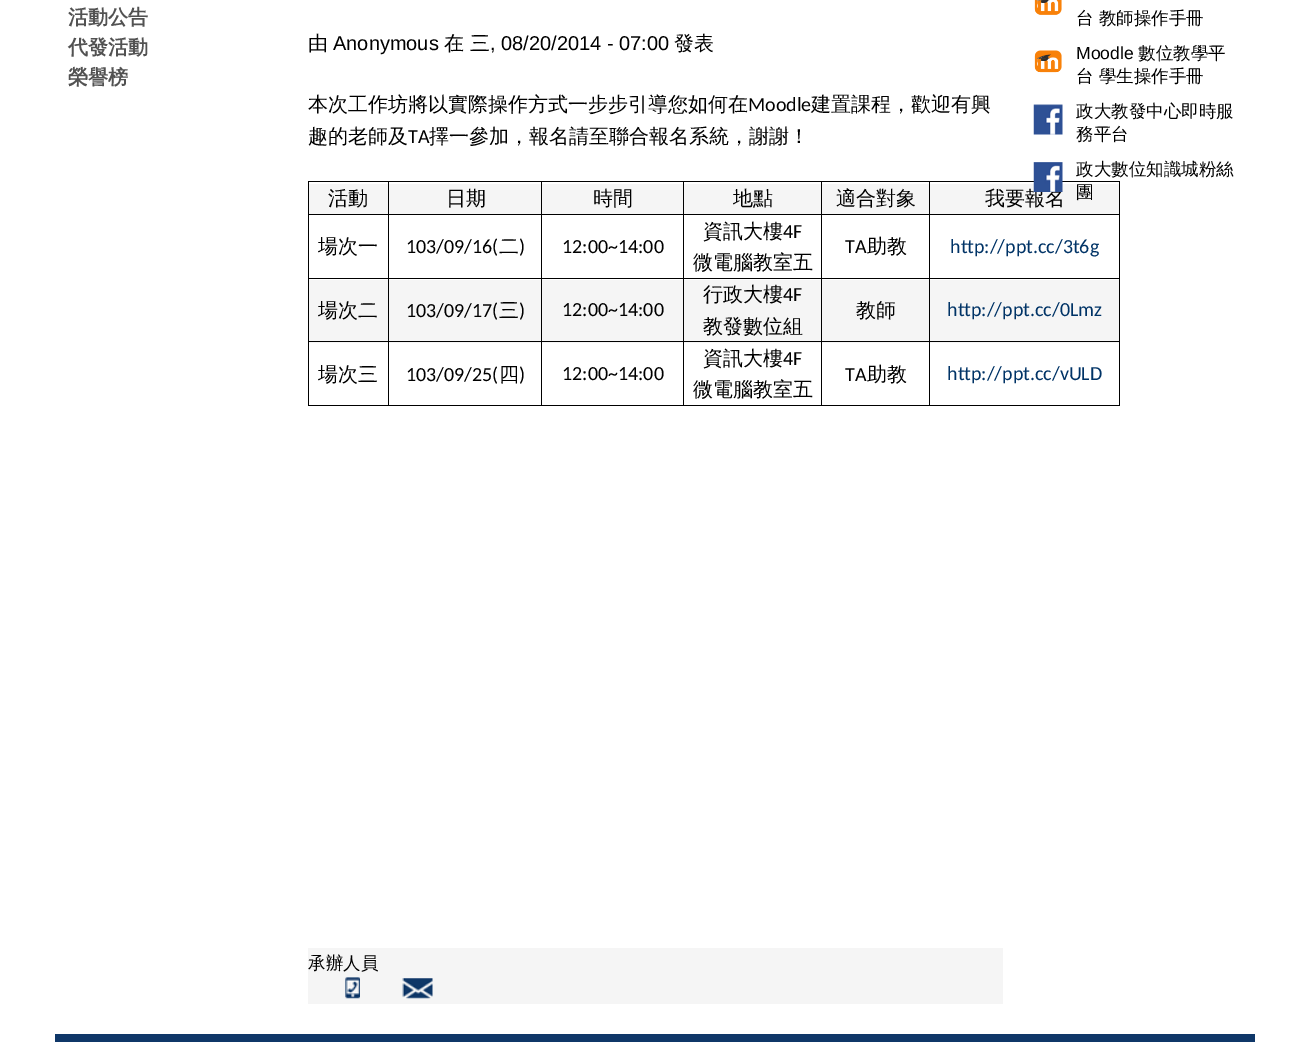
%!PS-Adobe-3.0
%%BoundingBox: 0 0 1310 1042
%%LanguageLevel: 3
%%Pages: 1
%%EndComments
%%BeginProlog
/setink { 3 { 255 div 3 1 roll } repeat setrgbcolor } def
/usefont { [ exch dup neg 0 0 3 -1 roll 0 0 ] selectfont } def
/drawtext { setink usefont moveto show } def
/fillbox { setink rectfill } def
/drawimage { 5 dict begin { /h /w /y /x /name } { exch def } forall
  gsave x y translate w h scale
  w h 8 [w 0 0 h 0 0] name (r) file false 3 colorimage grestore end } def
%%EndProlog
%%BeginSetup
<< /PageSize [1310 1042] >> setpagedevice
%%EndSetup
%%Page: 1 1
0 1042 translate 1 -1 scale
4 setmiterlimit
0 0 1310 1042 255 255 255 fillbox
(活動公告) 68 24 /WenQuanYiZenHei-Bold 20 82 82 82 drawtext
(代發活動) 68 54 /WenQuanYiZenHei-Bold 20 82 82 82 drawtext
(榮譽榜) 68 84 /WenQuanYiZenHei-Bold 20 82 82 82 drawtext
(assets/img1.rgb) 1034 0 28 15 drawimage
(台 教師操作手冊) 1076 24 /WenQuanYiZenHei-Medium 17.5 0 0 0 drawtext
(assets/img2.rgb) 1034 50 28 23 drawimage
(Moodle) 1076 59 /LiberationSans-Regular 17.5 0 0 0 drawtext
(數位教學平) 1138 59 /WenQuanYiZenHei-Medium 17.5 0 0 0 drawtext
(台 學生操作手冊) 1076 82 /WenQuanYiZenHei-Medium 17.5 0 0 0 drawtext
(assets/img3.rgb) 1033 104 30 31 drawimage
(政大教發中心即時服) 1076 117 /WenQuanYiZenHei-Medium 17.5 0 0 0 drawtext
(務平台) 1076 140 /WenQuanYiZenHei-Medium 17.5 0 0 0 drawtext
309 184 810 30 245 245 245 fillbox
308 181 812 1 0 0 0 fillbox
(我要報名) 985 205 /WenQuanYiZenHei-Medium 20 0 0 0 drawtext
(assets/img4.rgb) 1033 162 30 30 drawimage
(政大數位知識城粉絲) 1076 175 /WenQuanYiZenHei-Medium 17.5 0 0 0 drawtext
(團) 1076 198 /WenQuanYiZenHei-Medium 17.5 0 0 0 drawtext
(由) 308 50 /WenQuanYiZenHei-Medium 20 0 0 0 drawtext
(Anonymous) 333 50 /LiberationSans-Regular 20 0 0 0 drawtext
(在) 444 50 /WenQuanYiZenHei-Medium 20 0 0 0 drawtext
(三) 470 50 /WenQuanYiZenHei-Medium 20 0 0 0 drawtext
(, 08/20/2014 - 07:00) 490 50 /LiberationSans-Regular 20 0 0 0 drawtext
(發表) 674 50 /WenQuanYiZenHei-Medium 20 0 0 0 drawtext
(本次工作坊將以實際操作方式一步步引導您如何在) 308 111 /WenQuanYiZenHei-Medium 20 0 0 0 drawtext
(Moodle) 748 111 /Carlito-Regular 20 0 0 0 drawtext
(建置課程，歡迎有興) 811 111 /WenQuanYiZenHei-Medium 20 0 0 0 drawtext
(趣的老師及) 308 143 /WenQuanYiZenHei-Medium 20 0 0 0 drawtext
(TA) 408 143 /Carlito-Regular 20 0 0 0 drawtext
(擇一參加，報名請至聯合報名系統，謝謝！) 429 143 /WenQuanYiZenHei-Medium 20 0 0 0 drawtext
1119 214 1 192 0 0 0 fillbox
1119 181 1 34 0 0 0 fillbox
309 280 810 63 245 245 245 fillbox
929 405 191 1 0 0 0 fillbox
929 341 1 65 0 0 0 fillbox
929 341 191 1 0 0 0 fillbox
929 278 1 65 0 0 0 fillbox
929 278 191 1 0 0 0 fillbox
929 214 1 65 0 0 0 fillbox
929 214 191 1 0 0 0 fillbox
929 181 1 34 0 0 0 fillbox
821 405 109 1 0 0 0 fillbox
821 341 1 65 0 0 0 fillbox
821 341 109 1 0 0 0 fillbox
821 278 1 65 0 0 0 fillbox
821 278 109 1 0 0 0 fillbox
821 214 1 65 0 0 0 fillbox
821 214 109 1 0 0 0 fillbox
821 181 1 34 0 0 0 fillbox
683 405 140 1 0 0 0 fillbox
683 341 1 65 0 0 0 fillbox
683 341 140 1 0 0 0 fillbox
683 278 1 65 0 0 0 fillbox
683 278 140 1 0 0 0 fillbox
683 214 1 65 0 0 0 fillbox
683 214 140 1 0 0 0 fillbox
683 181 1 34 0 0 0 fillbox
541 405 143 1 0 0 0 fillbox
541 341 1 65 0 0 0 fillbox
541 341 143 1 0 0 0 fillbox
541 278 1 65 0 0 0 fillbox
541 278 143 1 0 0 0 fillbox
541 214 1 65 0 0 0 fillbox
541 214 143 1 0 0 0 fillbox
541 181 1 34 0 0 0 fillbox
388 405 155 1 0 0 0 fillbox
388 341 1 65 0 0 0 fillbox
388 341 155 1 0 0 0 fillbox
388 278 1 65 0 0 0 fillbox
388 278 155 1 0 0 0 fillbox
388 214 1 65 0 0 0 fillbox
388 214 155 1 0 0 0 fillbox
388 181 1 34 0 0 0 fillbox
308 405 81 1 0 0 0 fillbox
308 341 1 65 0 0 0 fillbox
308 341 81 1 0 0 0 fillbox
308 278 1 65 0 0 0 fillbox
308 278 81 1 0 0 0 fillbox
308 214 1 65 0 0 0 fillbox
308 214 81 1 0 0 0 fillbox
308 181 1 34 0 0 0 fillbox
(活動) 328 205 /WenQuanYiZenHei-Medium 20 0 0 0 drawtext
(日期) 446 205 /WenQuanYiZenHei-Medium 20 0 0 0 drawtext
(時間) 593 205 /WenQuanYiZenHei-Medium 20 0 0 0 drawtext
(地點) 733 205 /WenQuanYiZenHei-Medium 20 0 0 0 drawtext
(適合對象) 836 205 /WenQuanYiZenHei-Medium 20 0 0 0 drawtext
(場次一) 318 253 /WenQuanYiZenHei-Medium 20 0 0 0 drawtext
(103/09/16\() 406 253 /Carlito-Regular 20 0 0 0 drawtext
(二) 499 253 /WenQuanYiZenHei-Medium 20 0 0 0 drawtext
(\)) 519 253 /Carlito-Regular 20 0 0 0 drawtext
(12:00~14:00) 562 253 /Carlito-Regular 20 0 0 0 drawtext
(資訊大樓) 703 238 /WenQuanYiZenHei-Medium 20 0 0 0 drawtext
(4F) 783 238 /Carlito-Regular 20 0 0 0 drawtext
(微電腦教室五) 693 269 /WenQuanYiZenHei-Medium 20 0 0 0 drawtext
(TA) 845 253 /Carlito-Regular 20 0 0 0 drawtext
(助教) 867 253 /WenQuanYiZenHei-Medium 20 0 0 0 drawtext
(http://ppt.cc/3t6g) 950 253 /Carlito-Regular 20 0 51 102 drawtext
(場次二) 318 317 /WenQuanYiZenHei-Medium 20 0 0 0 drawtext
(103/09/17\() 406 317 /Carlito-Regular 20 0 0 0 drawtext
(三) 499 317 /WenQuanYiZenHei-Medium 20 0 0 0 drawtext
(\)) 519 317 /Carlito-Regular 20 0 0 0 drawtext
(12:00~14:00) 562 316 /Carlito-Regular 20 0 0 0 drawtext
(行政大樓) 703 301 /WenQuanYiZenHei-Medium 20 0 0 0 drawtext
(4F) 783 301 /Carlito-Regular 20 0 0 0 drawtext
(教發數位組) 703 333 /WenQuanYiZenHei-Medium 20 0 0 0 drawtext
(教師) 856 317 /WenQuanYiZenHei-Medium 20 0 0 0 drawtext
(http://ppt.cc/0Lmz) 947 316 /Carlito-Regular 20 0 51 102 drawtext
(場次三) 318 381 /WenQuanYiZenHei-Medium 20 0 0 0 drawtext
(103/09/25\() 406 381 /Carlito-Regular 20 0 0 0 drawtext
(四) 499 381 /WenQuanYiZenHei-Medium 20 0 0 0 drawtext
(\)) 519 381 /Carlito-Regular 20 0 0 0 drawtext
(12:00~14:00) 562 380 /Carlito-Regular 20 0 0 0 drawtext
(資訊大樓) 703 365 /WenQuanYiZenHei-Medium 20 0 0 0 drawtext
(4F) 783 365 /Carlito-Regular 20 0 0 0 drawtext
(微電腦教室五) 693 396 /WenQuanYiZenHei-Medium 20 0 0 0 drawtext
(TA) 845 381 /Carlito-Regular 20 0 0 0 drawtext
(助教) 867 381 /WenQuanYiZenHei-Medium 20 0 0 0 drawtext
(http://ppt.cc/vULD) 947 380 /Carlito-Regular 20 0 51 102 drawtext
308 948 695 56 245 245 245 fillbox
(承辦人員) 308 969 /WenQuanYiZenHei-Medium 17.5 0 0 0 drawtext
(assets/img5.rgb) 345 977 15 22 drawimage
(assets/img6.rgb) 402 978 31 21 drawimage
55 1034 1200 8 15 55 104 fillbox
showpage
%%EOF
